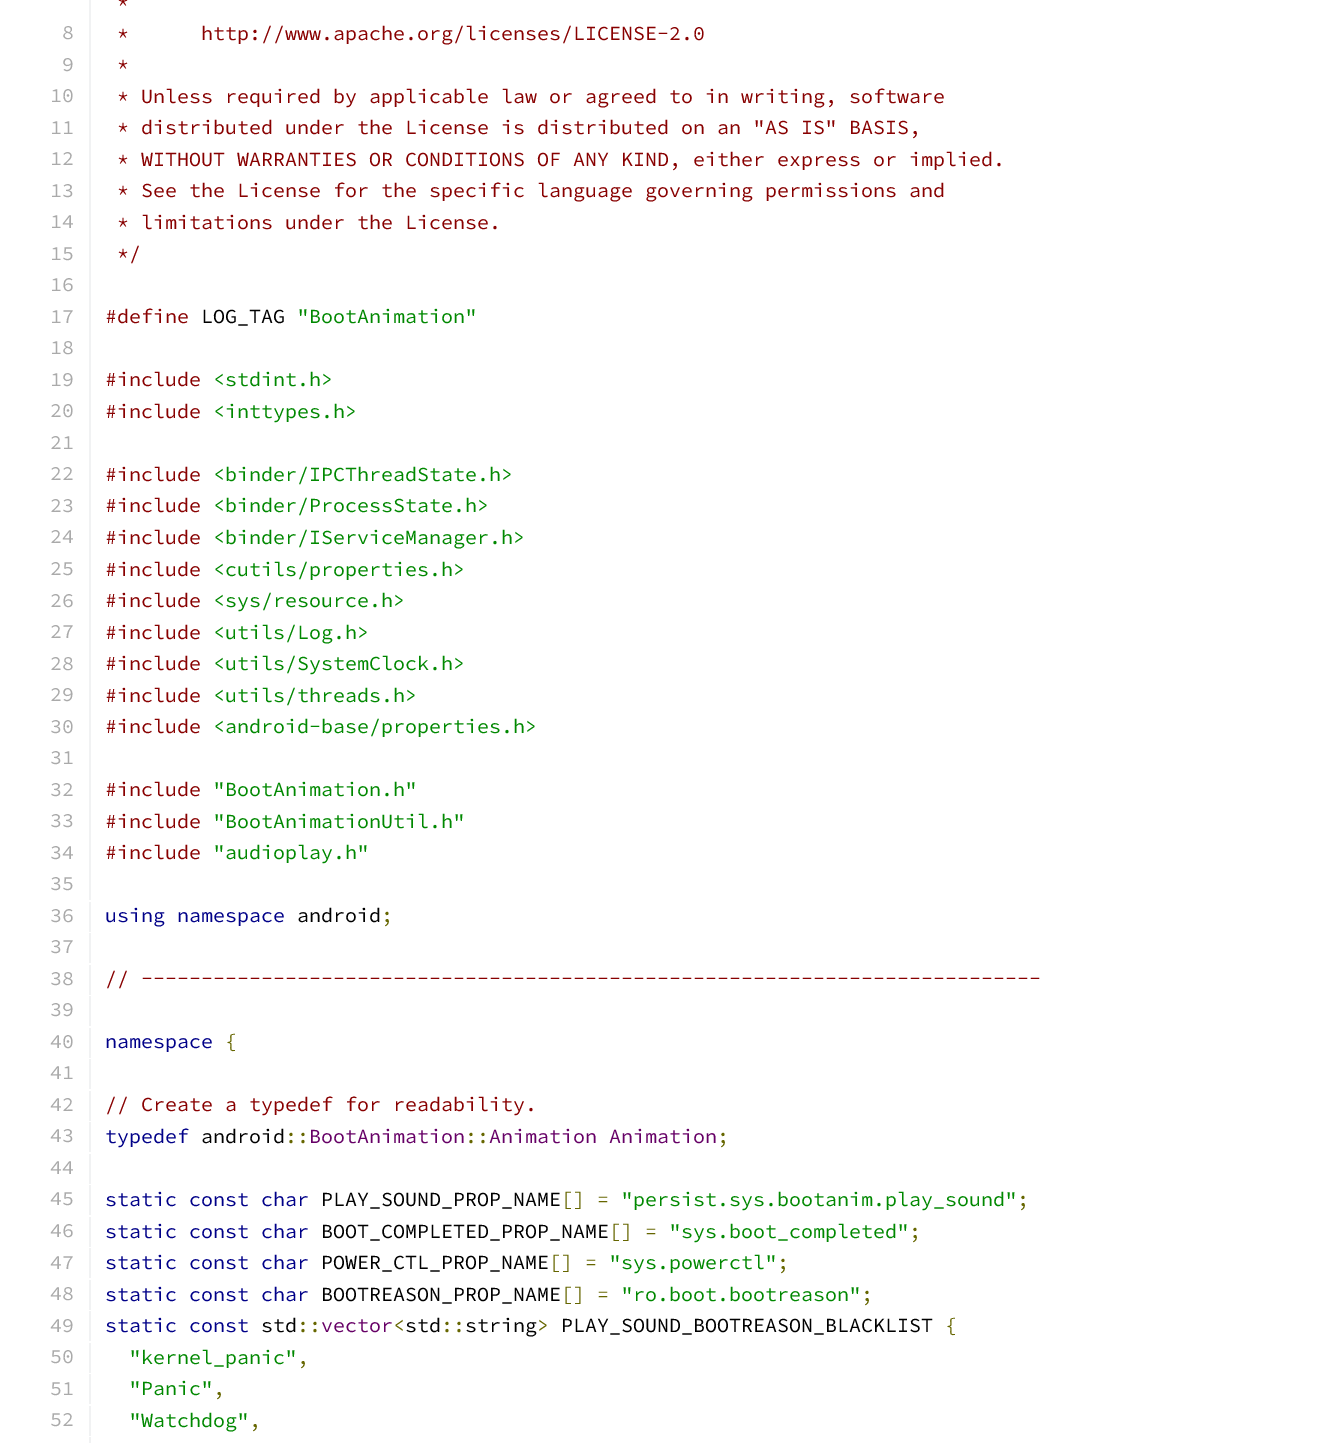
%!PS-Adobe-3.0
%%BoundingBox: 0 0 1329 1443
%%LanguageLevel: 3
%%Pages: 1
%%EndComments
%%BeginProlog
/setink { 3 { 255 div 3 1 roll } repeat setrgbcolor } def
/usefont { [ exch dup neg 0 0 3 -1 roll 0 0 ] selectfont } def
/drawtext { setink usefont moveto show } def
/fillbox { setink rectfill } def
%%EndProlog
%%BeginSetup
<< /PageSize [1329 1443] >> setpagedevice
%%EndSetup
%%Page: 1 1
0 1443 translate 1 -1 scale
4 setmiterlimit
0 0 1329 1443 255 255 255 fillbox
89 0 2 900 241 242 243 fillbox
(*) 117 8 /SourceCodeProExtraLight-ExtraLight 20 136 0 0 drawtext
(8) 62 39 /SourceCodeProExtraLight-ExtraLight 20 170 170 170 drawtext
(*      http://www.apache.org/licenses/LICENSE-2.0) 117 40 /SourceCodeProExtraLight-ExtraLight 20 136 0 0 drawtext
(9) 62 71 /SourceCodeProExtraLight-ExtraLight 20 170 170 170 drawtext
(*) 117 71 /SourceCodeProExtraLight-ExtraLight 20 136 0 0 drawtext
(10) 50 102 /SourceCodeProExtraLight-ExtraLight 20 170 170 170 drawtext
(* Unless required by applicable law or agreed to in writing, software) 117 103 /SourceCodeProExtraLight-ExtraLight 20 136 0 0 drawtext
(11) 50 134 /SourceCodeProExtraLight-ExtraLight 20 170 170 170 drawtext
(* distributed under the License is distributed on an "AS IS" BASIS,) 117 134 /SourceCodeProExtraLight-ExtraLight 20 136 0 0 drawtext
(12) 50 165 /SourceCodeProExtraLight-ExtraLight 20 170 170 170 drawtext
(* WITHOUT WARRANTIES OR CONDITIONS OF ANY KIND, either express or implied.) 117 166 /SourceCodeProExtraLight-ExtraLight 20 136 0 0 drawtext
(13) 50 197 /SourceCodeProExtraLight-ExtraLight 20 170 170 170 drawtext
(* See the License for the specific language governing permissions and) 117 197 /SourceCodeProExtraLight-ExtraLight 20 136 0 0 drawtext
(14) 50 228 /SourceCodeProExtraLight-ExtraLight 20 170 170 170 drawtext
(* limitations under the License.) 117 229 /SourceCodeProExtraLight-ExtraLight 20 136 0 0 drawtext
(15) 50 260 /SourceCodeProExtraLight-ExtraLight 20 170 170 170 drawtext
(*/) 117 260 /SourceCodeProExtraLight-ExtraLight 20 136 0 0 drawtext
(16) 50 291 /SourceCodeProExtraLight-ExtraLight 20 170 170 170 drawtext
(17) 50 323 /SourceCodeProExtraLight-ExtraLight 20 170 170 170 drawtext
(#define) 105 323 /SourceCodeProExtraLight-ExtraLight 20 136 0 0 drawtext
(LOG_TAG) 201 323 /SourceCodeProExtraLight-ExtraLight 20 0 0 0 drawtext
("BootAnimation") 297 323 /SourceCodeProExtraLight-ExtraLight 20 0 136 0 drawtext
(18) 50 354 /SourceCodeProExtraLight-ExtraLight 20 170 170 170 drawtext
(19) 50 386 /SourceCodeProExtraLight-ExtraLight 20 170 170 170 drawtext
(#include) 105 386 /SourceCodeProExtraLight-ExtraLight 20 136 0 0 drawtext
(<stdint.h>) 213 386 /SourceCodeProExtraLight-ExtraLight 20 0 136 0 drawtext
(20) 50 417 /SourceCodeProExtraLight-ExtraLight 20 170 170 170 drawtext
(#include) 105 418 /SourceCodeProExtraLight-ExtraLight 20 136 0 0 drawtext
(<inttypes.h>) 213 418 /SourceCodeProExtraLight-ExtraLight 20 0 136 0 drawtext
(21) 50 449 /SourceCodeProExtraLight-ExtraLight 20 170 170 170 drawtext
(22) 50 480 /SourceCodeProExtraLight-ExtraLight 20 170 170 170 drawtext
(#include) 105 481 /SourceCodeProExtraLight-ExtraLight 20 136 0 0 drawtext
(<binder/IPCThreadState.h>) 213 481 /SourceCodeProExtraLight-ExtraLight 20 0 136 0 drawtext
(23) 50 512 /SourceCodeProExtraLight-ExtraLight 20 170 170 170 drawtext
(#include) 105 512 /SourceCodeProExtraLight-ExtraLight 20 136 0 0 drawtext
(<binder/ProcessState.h>) 213 512 /SourceCodeProExtraLight-ExtraLight 20 0 136 0 drawtext
(24) 50 543 /SourceCodeProExtraLight-ExtraLight 20 170 170 170 drawtext
(#include) 105 544 /SourceCodeProExtraLight-ExtraLight 20 136 0 0 drawtext
(<binder/IServiceManager.h>) 213 544 /SourceCodeProExtraLight-ExtraLight 20 0 136 0 drawtext
(25) 50 575 /SourceCodeProExtraLight-ExtraLight 20 170 170 170 drawtext
(#include) 105 576 /SourceCodeProExtraLight-ExtraLight 20 136 0 0 drawtext
(<cutils/properties.h>) 213 576 /SourceCodeProExtraLight-ExtraLight 20 0 136 0 drawtext
(26) 50 607 /SourceCodeProExtraLight-ExtraLight 20 170 170 170 drawtext
(#include) 105 607 /SourceCodeProExtraLight-ExtraLight 20 136 0 0 drawtext
(<sys/resource.h>) 213 607 /SourceCodeProExtraLight-ExtraLight 20 0 136 0 drawtext
(27) 50 638 /SourceCodeProExtraLight-ExtraLight 20 170 170 170 drawtext
(#include) 105 639 /SourceCodeProExtraLight-ExtraLight 20 136 0 0 drawtext
(<utils/Log.h>) 213 639 /SourceCodeProExtraLight-ExtraLight 20 0 136 0 drawtext
(28) 50 670 /SourceCodeProExtraLight-ExtraLight 20 170 170 170 drawtext
(#include) 105 670 /SourceCodeProExtraLight-ExtraLight 20 136 0 0 drawtext
(<utils/SystemClock.h>) 213 670 /SourceCodeProExtraLight-ExtraLight 20 0 136 0 drawtext
(29) 50 701 /SourceCodeProExtraLight-ExtraLight 20 170 170 170 drawtext
(#include) 105 702 /SourceCodeProExtraLight-ExtraLight 20 136 0 0 drawtext
(<utils/threads.h>) 213 702 /SourceCodeProExtraLight-ExtraLight 20 0 136 0 drawtext
(30) 50 733 /SourceCodeProExtraLight-ExtraLight 20 170 170 170 drawtext
(#include) 105 733 /SourceCodeProExtraLight-ExtraLight 20 136 0 0 drawtext
(<android-base/properties.h>) 213 733 /SourceCodeProExtraLight-ExtraLight 20 0 136 0 drawtext
(31) 50 764 /SourceCodeProExtraLight-ExtraLight 20 170 170 170 drawtext
(32) 50 796 /SourceCodeProExtraLight-ExtraLight 20 170 170 170 drawtext
(#include) 105 796 /SourceCodeProExtraLight-ExtraLight 20 136 0 0 drawtext
("BootAnimation.h") 213 796 /SourceCodeProExtraLight-ExtraLight 20 0 136 0 drawtext
(33) 50 827 /SourceCodeProExtraLight-ExtraLight 20 170 170 170 drawtext
(#include) 105 828 /SourceCodeProExtraLight-ExtraLight 20 136 0 0 drawtext
("BootAnimationUtil.h") 213 828 /SourceCodeProExtraLight-ExtraLight 20 0 136 0 drawtext
(34) 50 859 /SourceCodeProExtraLight-ExtraLight 20 170 170 170 drawtext
(#include) 105 859 /SourceCodeProExtraLight-ExtraLight 20 136 0 0 drawtext
("audioplay.h") 213 859 /SourceCodeProExtraLight-ExtraLight 20 0 136 0 drawtext
(35) 50 890 /SourceCodeProExtraLight-ExtraLight 20 170 170 170 drawtext
89 902 2 30 241 242 243 fillbox
(36) 50 922 /SourceCodeProExtraLight-ExtraLight 20 170 170 170 drawtext
(using namespace) 105 922 /SourceCodeProExtraLight-ExtraLight 20 0 0 136 drawtext
(android) 297 922 /SourceCodeProExtraLight-ExtraLight 20 0 0 0 drawtext
(;) 381 922 /SourceCodeProExtraLight-ExtraLight 20 102 102 0 drawtext
89 933 2 30 241 242 243 fillbox
(37) 50 953 /SourceCodeProExtraLight-ExtraLight 20 170 170 170 drawtext
89 965 2 30 241 242 243 fillbox
(38) 50 985 /SourceCodeProExtraLight-ExtraLight 20 170 170 170 drawtext
(// ---------------------------------------------------------------------------) 105 985 /SourceCodeProExtraLight-ExtraLight 20 136 0 0 drawtext
89 996 2 30 241 242 243 fillbox
(39) 50 1016 /SourceCodeProExtraLight-ExtraLight 20 170 170 170 drawtext
89 1028 2 30 241 242 243 fillbox
(40) 50 1048 /SourceCodeProExtraLight-ExtraLight 20 170 170 170 drawtext
(namespace) 105 1048 /SourceCodeProExtraLight-ExtraLight 20 0 0 136 drawtext
({) 225 1048 /SourceCodeProExtraLight-ExtraLight 20 102 102 0 drawtext
89 1059 2 30 241 242 243 fillbox
(41) 50 1079 /SourceCodeProExtraLight-ExtraLight 20 170 170 170 drawtext
89 1091 2 30 241 242 243 fillbox
(42) 50 1111 /SourceCodeProExtraLight-ExtraLight 20 170 170 170 drawtext
(// Create a typedef for readability.) 105 1111 /SourceCodeProExtraLight-ExtraLight 20 136 0 0 drawtext
89 1122 2 30 241 242 243 fillbox
(43) 50 1142 /SourceCodeProExtraLight-ExtraLight 20 170 170 170 drawtext
(typedef) 105 1143 /SourceCodeProExtraLight-ExtraLight 20 0 0 136 drawtext
(android) 201 1143 /SourceCodeProExtraLight-ExtraLight 20 0 0 0 drawtext
(::) 285 1143 /SourceCodeProExtraLight-ExtraLight 20 102 102 0 drawtext
(BootAnimation) 309 1143 /SourceCodeProExtraLight-ExtraLight 20 102 0 102 drawtext
(::) 465 1143 /SourceCodeProExtraLight-ExtraLight 20 102 102 0 drawtext
(Animation Animation) 489 1143 /SourceCodeProExtraLight-ExtraLight 20 102 0 102 drawtext
(;) 717 1143 /SourceCodeProExtraLight-ExtraLight 20 102 102 0 drawtext
89 1154 2 30 241 242 243 fillbox
(44) 50 1174 /SourceCodeProExtraLight-ExtraLight 20 170 170 170 drawtext
89 1185 2 30 241 242 243 fillbox
(45) 50 1205 /SourceCodeProExtraLight-ExtraLight 20 170 170 170 drawtext
(static const char) 105 1206 /SourceCodeProExtraLight-ExtraLight 20 0 0 136 drawtext
(PLAY_SOUND_PROP_NAME) 321 1206 /SourceCodeProExtraLight-ExtraLight 20 0 0 0 drawtext
([] =) 561 1206 /SourceCodeProExtraLight-ExtraLight 20 102 102 0 drawtext
("persist.sys.bootanim.play_sound") 621 1206 /SourceCodeProExtraLight-ExtraLight 20 0 136 0 drawtext
(;) 1017 1206 /SourceCodeProExtraLight-ExtraLight 20 102 102 0 drawtext
89 1217 2 30 241 242 243 fillbox
(46) 50 1237 /SourceCodeProExtraLight-ExtraLight 20 170 170 170 drawtext
(static const char) 105 1238 /SourceCodeProExtraLight-ExtraLight 20 0 0 136 drawtext
(BOOT_COMPLETED_PROP_NAME) 321 1238 /SourceCodeProExtraLight-ExtraLight 20 0 0 0 drawtext
([] =) 609 1238 /SourceCodeProExtraLight-ExtraLight 20 102 102 0 drawtext
("sys.boot_completed") 669 1238 /SourceCodeProExtraLight-ExtraLight 20 0 136 0 drawtext
(;) 909 1238 /SourceCodeProExtraLight-ExtraLight 20 102 102 0 drawtext
89 1248 2 30 241 242 243 fillbox
(47) 50 1269 /SourceCodeProExtraLight-ExtraLight 20 170 170 170 drawtext
(static const char) 105 1269 /SourceCodeProExtraLight-ExtraLight 20 0 0 136 drawtext
(POWER_CTL_PROP_NAME) 321 1269 /SourceCodeProExtraLight-ExtraLight 20 0 0 0 drawtext
([] =) 549 1269 /SourceCodeProExtraLight-ExtraLight 20 102 102 0 drawtext
("sys.powerctl") 609 1269 /SourceCodeProExtraLight-ExtraLight 20 0 136 0 drawtext
(;) 777 1269 /SourceCodeProExtraLight-ExtraLight 20 102 102 0 drawtext
89 1280 2 30 241 242 243 fillbox
(48) 50 1300 /SourceCodeProExtraLight-ExtraLight 20 170 170 170 drawtext
(static const char) 105 1301 /SourceCodeProExtraLight-ExtraLight 20 0 0 136 drawtext
(BOOTREASON_PROP_NAME) 321 1301 /SourceCodeProExtraLight-ExtraLight 20 0 0 0 drawtext
([] =) 561 1301 /SourceCodeProExtraLight-ExtraLight 20 102 102 0 drawtext
("ro.boot.bootreason") 621 1301 /SourceCodeProExtraLight-ExtraLight 20 0 136 0 drawtext
(;) 861 1301 /SourceCodeProExtraLight-ExtraLight 20 102 102 0 drawtext
89 1311 2 30 241 242 243 fillbox
(49) 50 1332 /SourceCodeProExtraLight-ExtraLight 20 170 170 170 drawtext
(static const) 105 1332 /SourceCodeProExtraLight-ExtraLight 20 0 0 136 drawtext
(std) 261 1332 /SourceCodeProExtraLight-ExtraLight 20 0 0 0 drawtext
(::) 297 1332 /SourceCodeProExtraLight-ExtraLight 20 102 102 0 drawtext
(vector) 321 1332 /SourceCodeProExtraLight-ExtraLight 20 102 0 102 drawtext
(<) 393 1332 /SourceCodeProExtraLight-ExtraLight 20 102 102 0 drawtext
(std) 405 1332 /SourceCodeProExtraLight-ExtraLight 20 0 0 0 drawtext
(::) 441 1332 /SourceCodeProExtraLight-ExtraLight 20 102 102 0 drawtext
(string) 465 1332 /SourceCodeProExtraLight-ExtraLight 20 0 0 0 drawtext
(>) 537 1332 /SourceCodeProExtraLight-ExtraLight 20 102 102 0 drawtext
(PLAY_SOUND_BOOTREASON_BLACKLIST) 561 1332 /SourceCodeProExtraLight-ExtraLight 20 0 0 0 drawtext
({) 945 1332 /SourceCodeProExtraLight-ExtraLight 20 102 102 0 drawtext
89 1343 2 30 241 242 243 fillbox
(50) 50 1363 /SourceCodeProExtraLight-ExtraLight 20 170 170 170 drawtext
("kernel_panic") 129 1364 /SourceCodeProExtraLight-ExtraLight 20 0 136 0 drawtext
(,) 297 1364 /SourceCodeProExtraLight-ExtraLight 20 102 102 0 drawtext
89 1374 2 30 241 242 243 fillbox
(51) 50 1395 /SourceCodeProExtraLight-ExtraLight 20 170 170 170 drawtext
("Panic") 129 1395 /SourceCodeProExtraLight-ExtraLight 20 0 136 0 drawtext
(,) 213 1395 /SourceCodeProExtraLight-ExtraLight 20 102 102 0 drawtext
89 1406 2 30 241 242 243 fillbox
(52) 50 1426 /SourceCodeProExtraLight-ExtraLight 20 170 170 170 drawtext
("Watchdog") 129 1427 /SourceCodeProExtraLight-ExtraLight 20 0 136 0 drawtext
(,) 249 1427 /SourceCodeProExtraLight-ExtraLight 20 102 102 0 drawtext
89 1437 2 6 241 242 243 fillbox
showpage
%%EOF
